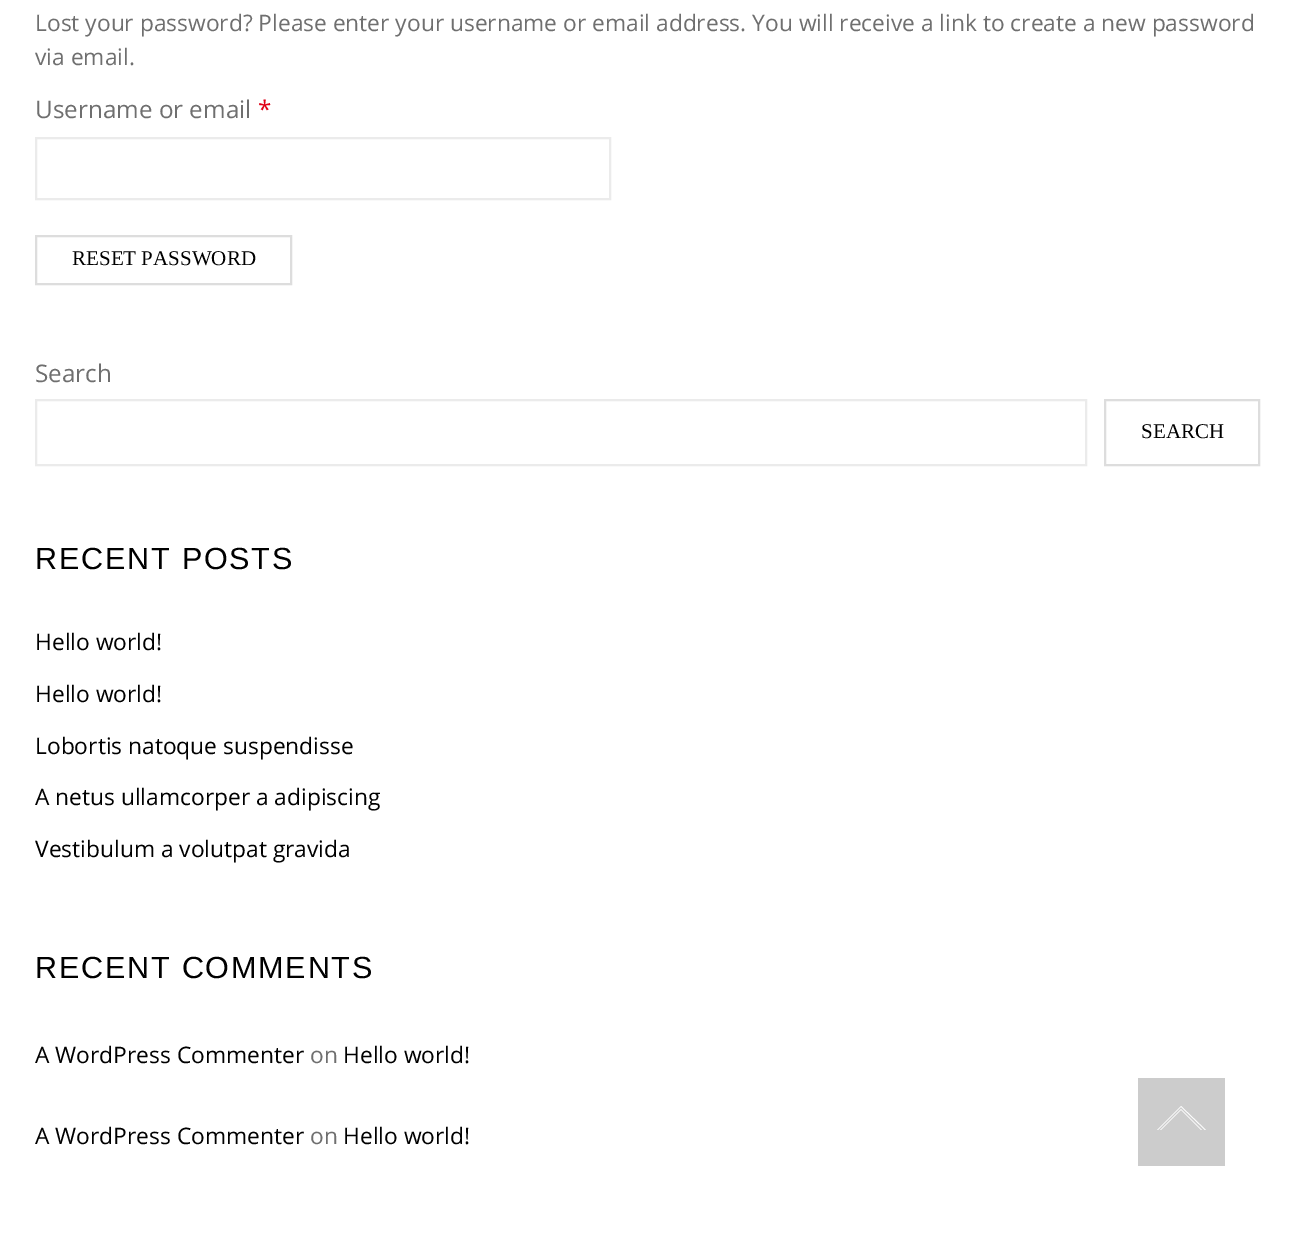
%!PS-Adobe-3.0
%%BoundingBox: 0 0 1294 1252
%%LanguageLevel: 3
%%Pages: 1
%%EndComments
%%BeginProlog
/setink { 3 { 255 div 3 1 roll } repeat setrgbcolor } def
/usefont { [ exch dup neg 0 0 3 -1 roll 0 0 ] selectfont } def
/drawtext { setink usefont moveto show } def
/fillbox { setink rectfill } def
%%EndProlog
%%BeginSetup
<< /PageSize [1294 1252] >> setpagedevice
%%EndSetup
%%Page: 1 1
0 1252 translate 1 -1 scale
4 setmiterlimit
0 0 1294 1252 255 255 255 fillbox
(Lost your password? Please enter your username or email address. You will receive a link to create a new password) 35 31 /OpenSans-Regular 22.75 111 111 111 drawtext
(via email.) 35 65 /OpenSans-Regular 22.75 111 111 111 drawtext
(Username or email) 35 118 /OpenSans-Regular 24.25 111 111 111 drawtext
(*) 258 118 /OpenSans-Regular 24.25 224 0 22 drawtext
235 235 235 setink
2 setlinewidth
36 138 574 61 rectstroke
221 221 221 setink
36 236 255 48 rectstroke
(RESET PASSWORD) 72 265 /LiberationSerif-Regular 21 0 0 0 drawtext
(Search) 35 382 /OpenSans-Regular 24.25 111 111 111 drawtext
235 235 235 setink
36 400 1050 65 rectstroke
221 221 221 setink
1105 400 154 65 rectstroke
(SEARCH) 1141 438 /LiberationSerif-Regular 21 0 0 0 drawtext
/LiberationSans-Regular 30.6 usefont
35 569 moveto 1.75 0 (RECENT POSTS) ashow
(Hello world!) 35 650 /OpenSans-Regular 22.75 0 0 0 drawtext
(Hello world!) 35 702 /OpenSans-Regular 22.75 0 0 0 drawtext
(Lobortis natoque suspendisse) 35 754 /OpenSans-Regular 22.75 0 0 0 drawtext
(A netus ullamcorper a adipiscing) 35 805 /OpenSans-Regular 22.75 0 0 0 drawtext
(Vestibulum a volutpat gravida) 35 857 /OpenSans-Regular 22.75 0 0 0 drawtext
/LiberationSans-Regular 30.6 usefont
35 978 moveto 1.75 0 (RECENT COMMENTS) ashow
(A WordPress Commenter) 35 1063 /OpenSans-Regular 22.75 0 0 0 drawtext
(on) 310 1063 /OpenSans-Regular 22.75 111 111 111 drawtext
(Hello world!) 343 1063 /OpenSans-Regular 22.75 0 0 0 drawtext
(A WordPress Commenter) 35 1144 /OpenSans-Regular 22.75 0 0 0 drawtext
(on) 310 1144 /OpenSans-Regular 22.75 111 111 111 drawtext
(Hello world!) 343 1144 /OpenSans-Regular 22.75 0 0 0 drawtext
1138 1078 87 88 204 204 204 fillbox
255 255 255 setink
1161 1130 moveto 1181 1110 lineto 1201 1130 lineto 1202 1130 lineto 1181 1109 lineto 1160 1130 lineto closepath 1158 1130 moveto 1181 1107 lineto 1205 1130 lineto 1206 1130 lineto 1181 1106 lineto 1157 1130 lineto closepath fill
showpage
%%EOF
